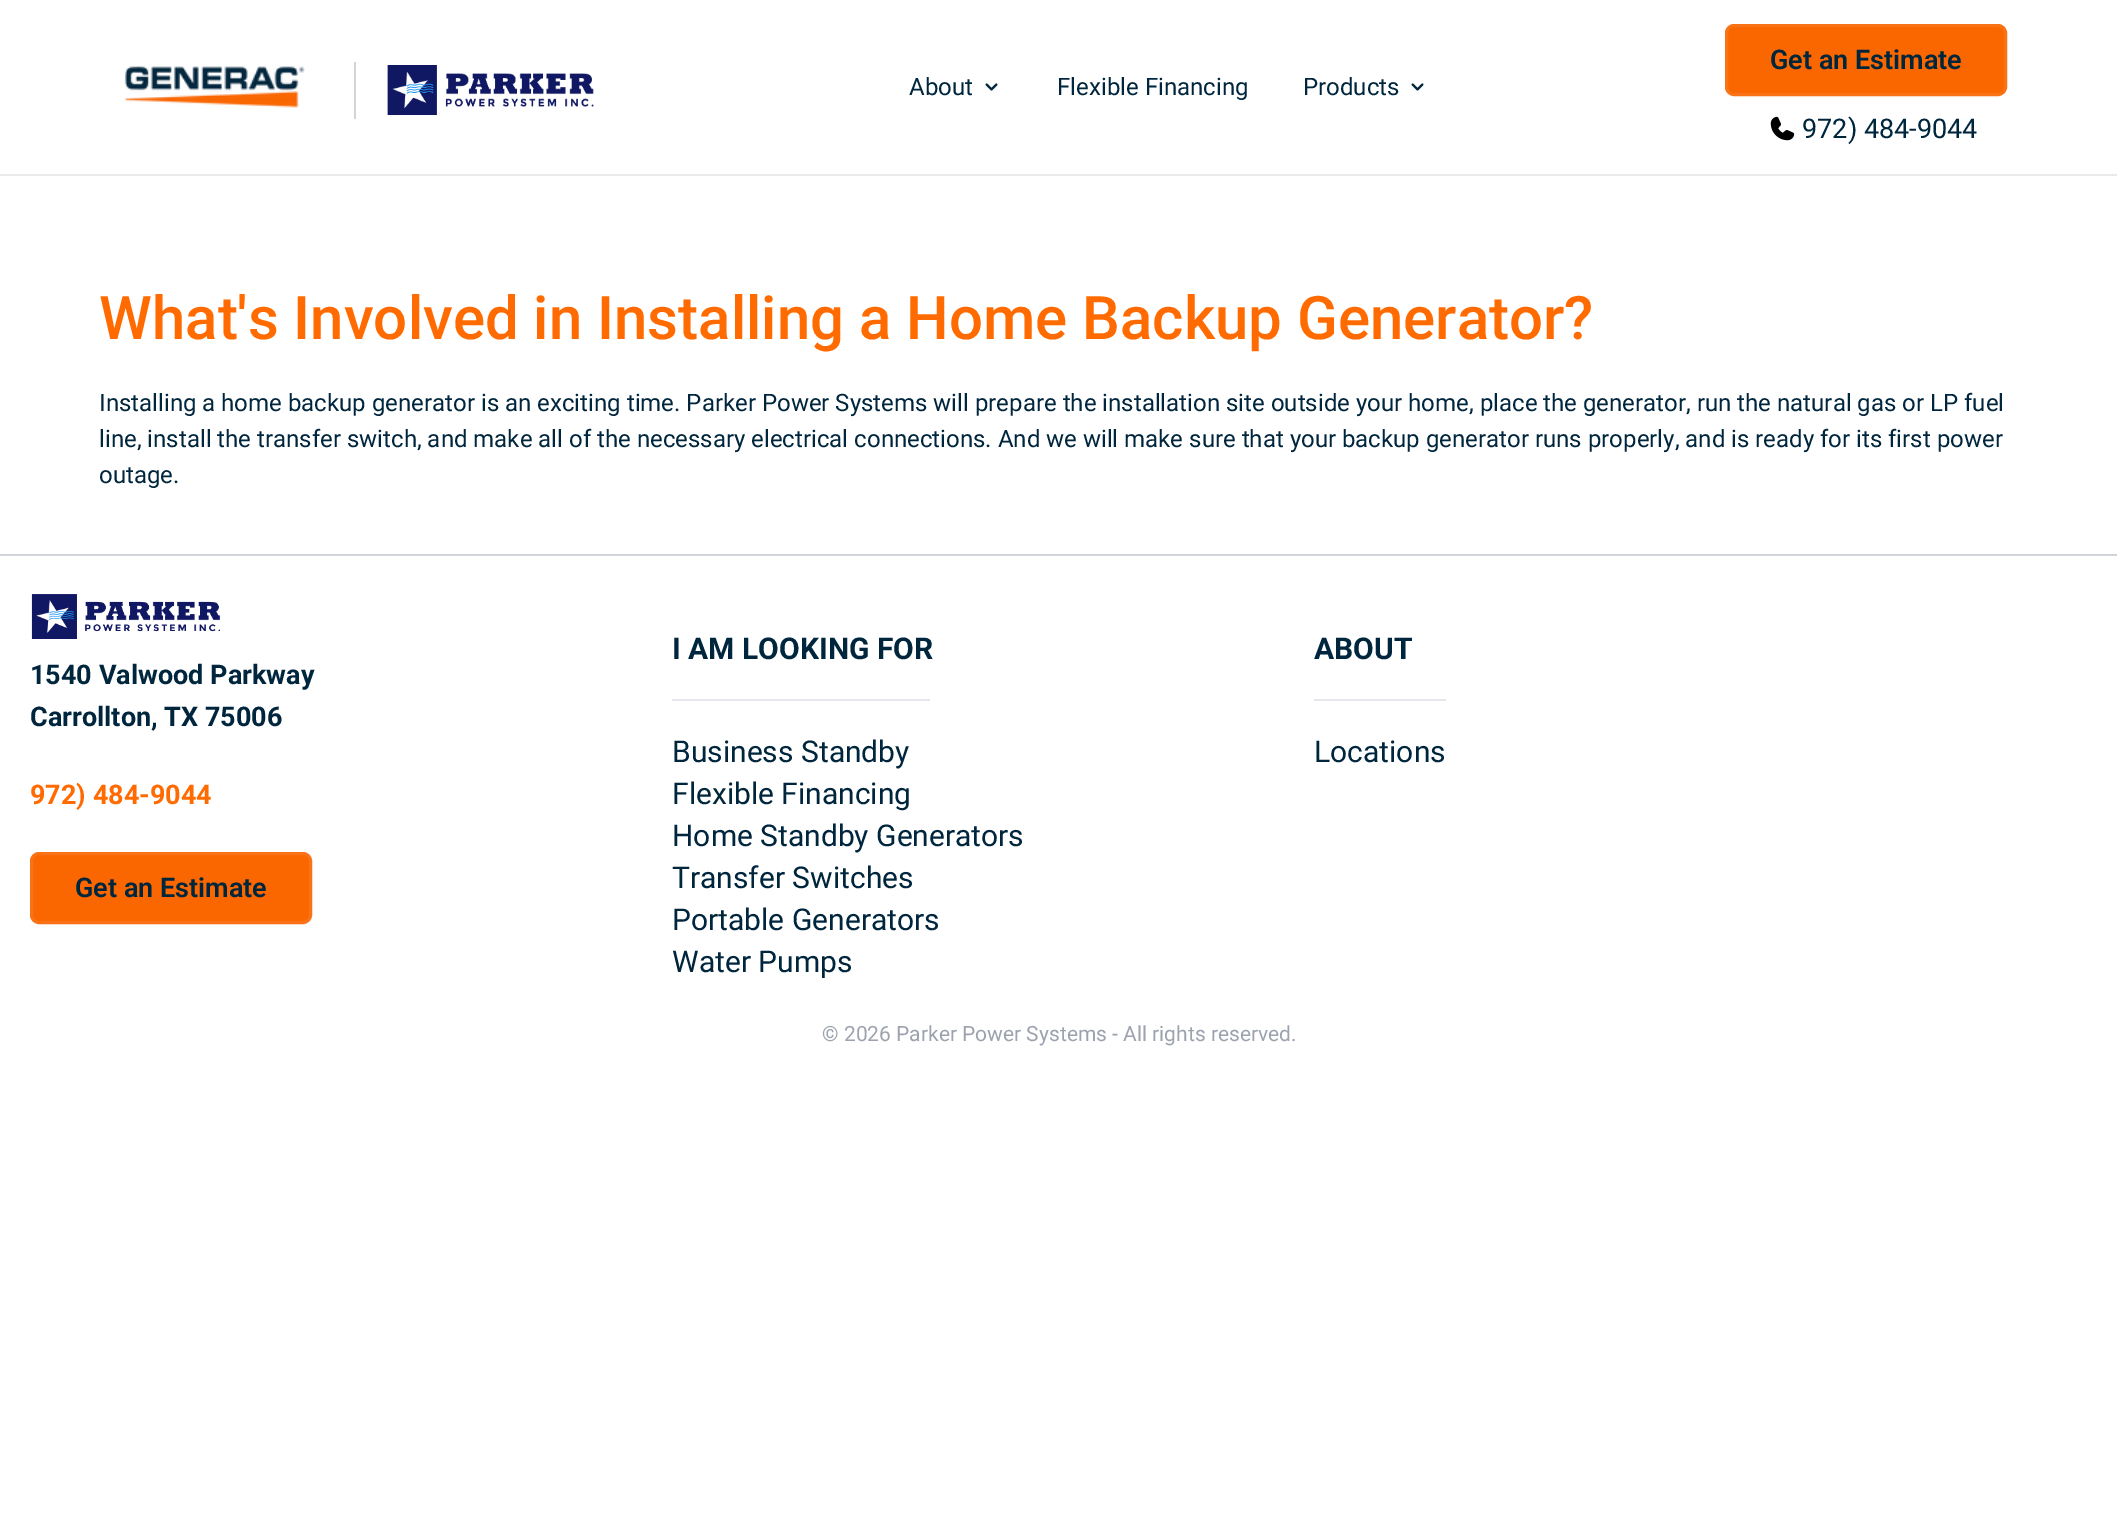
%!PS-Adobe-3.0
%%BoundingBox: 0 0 2117 1522
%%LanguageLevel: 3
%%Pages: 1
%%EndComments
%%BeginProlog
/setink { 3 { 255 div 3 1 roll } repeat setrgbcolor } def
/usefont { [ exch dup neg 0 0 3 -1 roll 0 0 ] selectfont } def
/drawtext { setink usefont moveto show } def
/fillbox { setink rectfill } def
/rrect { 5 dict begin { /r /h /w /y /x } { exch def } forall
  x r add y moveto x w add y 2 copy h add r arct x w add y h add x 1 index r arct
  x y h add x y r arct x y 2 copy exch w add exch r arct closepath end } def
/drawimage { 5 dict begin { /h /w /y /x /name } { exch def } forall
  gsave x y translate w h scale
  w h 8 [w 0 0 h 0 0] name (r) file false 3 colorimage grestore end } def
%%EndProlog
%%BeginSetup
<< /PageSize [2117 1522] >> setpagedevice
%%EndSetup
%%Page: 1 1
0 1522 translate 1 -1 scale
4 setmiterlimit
0 0 2117 1522 255 255 255 fillbox
0 174 2117 2 234 234 234 fillbox
(assets/img1.rgb) 124 66 181 42 drawimage
354 62 2 57 212 212 212 fillbox
(assets/img2.rgb) 387 65 207 51 drawimage
(About) 909 95 /Roboto-Regular 24 0 38 62 drawtext
(assets/img3.rgb) 985 83 13 8 drawimage
(Flexible Financing) 1057 95 /Roboto-Regular 24 0 38 62 drawtext
(Products) 1303 95 /Roboto-Regular 24 0 38 62 drawtext
(assets/img3.rgb) 1411 83 13 8 drawimage
250 102 0 setink
1726.5 25.5 279 69 7.5 rrect gsave fill grestore
249 115 22 setink
3 setlinewidth
stroke
(Get an Estimate) 1770 69 /Roboto-SemiBold 27 0 38 62 drawtext
(assets/img4.rgb) 1770 116 25 25 drawimage
(972\) 484-9044) 1802 138 /Roboto-Regular 27 0 38 62 drawtext
(What's Involved in Installing a Home Backup Generator?) 99 339 /Roboto-Medium 60 255 107 0 drawtext
(Installing a home backup generator is an exciting time. Parker Power Systems will prepare the installation site outside your home, place the generator, run the natural gas or LP fuel) 99 411 /Roboto-Regular 24 0 38 62 drawtext
(line, install the transfer switch, and make all of the necessary electrical connections. And we will make sure that your backup generator runs properly, and is ready for its first power) 99 447 /Roboto-Regular 24 0 38 62 drawtext
(outage.) 99 483 /Roboto-Regular 24 0 38 62 drawtext
0 554 2117 2 209 213 219 fillbox
(assets/img5.rgb) 31 594 190 45 drawimage
(1540 Valwood Parkway) 30 684 /Roboto-Bold 27 0 38 62 drawtext
(Carrollton, TX 75006) 30 726 /Roboto-Bold 27 0 38 62 drawtext
(972\) 484-9044) 30 804 /Roboto-Bold 27 255 107 0 drawtext
250 102 0 setink
31.5 853.5 279 69 7.5 rrect gsave fill grestore
249 115 22 setink
stroke
(Get an Estimate) 75 897 /Roboto-SemiBold 27 0 38 62 drawtext
(I AM LOOKING FOR) 672 659 /Roboto-Bold 30 0 38 62 drawtext
672 699 258 2 229 231 235 fillbox
(Business Standby) 672 762 /Roboto-Regular 30 0 38 62 drawtext
(Flexible Financing) 672 804 /Roboto-Regular 30 0 38 62 drawtext
(Home Standby Generators) 672 846 /Roboto-Regular 30 0 38 62 drawtext
(Transfer Switches) 672 888 /Roboto-Regular 30 0 38 62 drawtext
(Portable Generators) 672 930 /Roboto-Regular 30 0 38 62 drawtext
(Water Pumps) 672 972 /Roboto-Regular 30 0 38 62 drawtext
(ABOUT) 1314 659 /Roboto-Bold 30 0 38 62 drawtext
1314 699 132 2 229 231 235 fillbox
(Locations) 1314 762 /Roboto-Regular 30 0 38 62 drawtext
(© 2026 Parker Power Systems - All rights reserved.) 822 1041 /Roboto-Regular 21 156 163 175 drawtext
showpage
%%EOF
